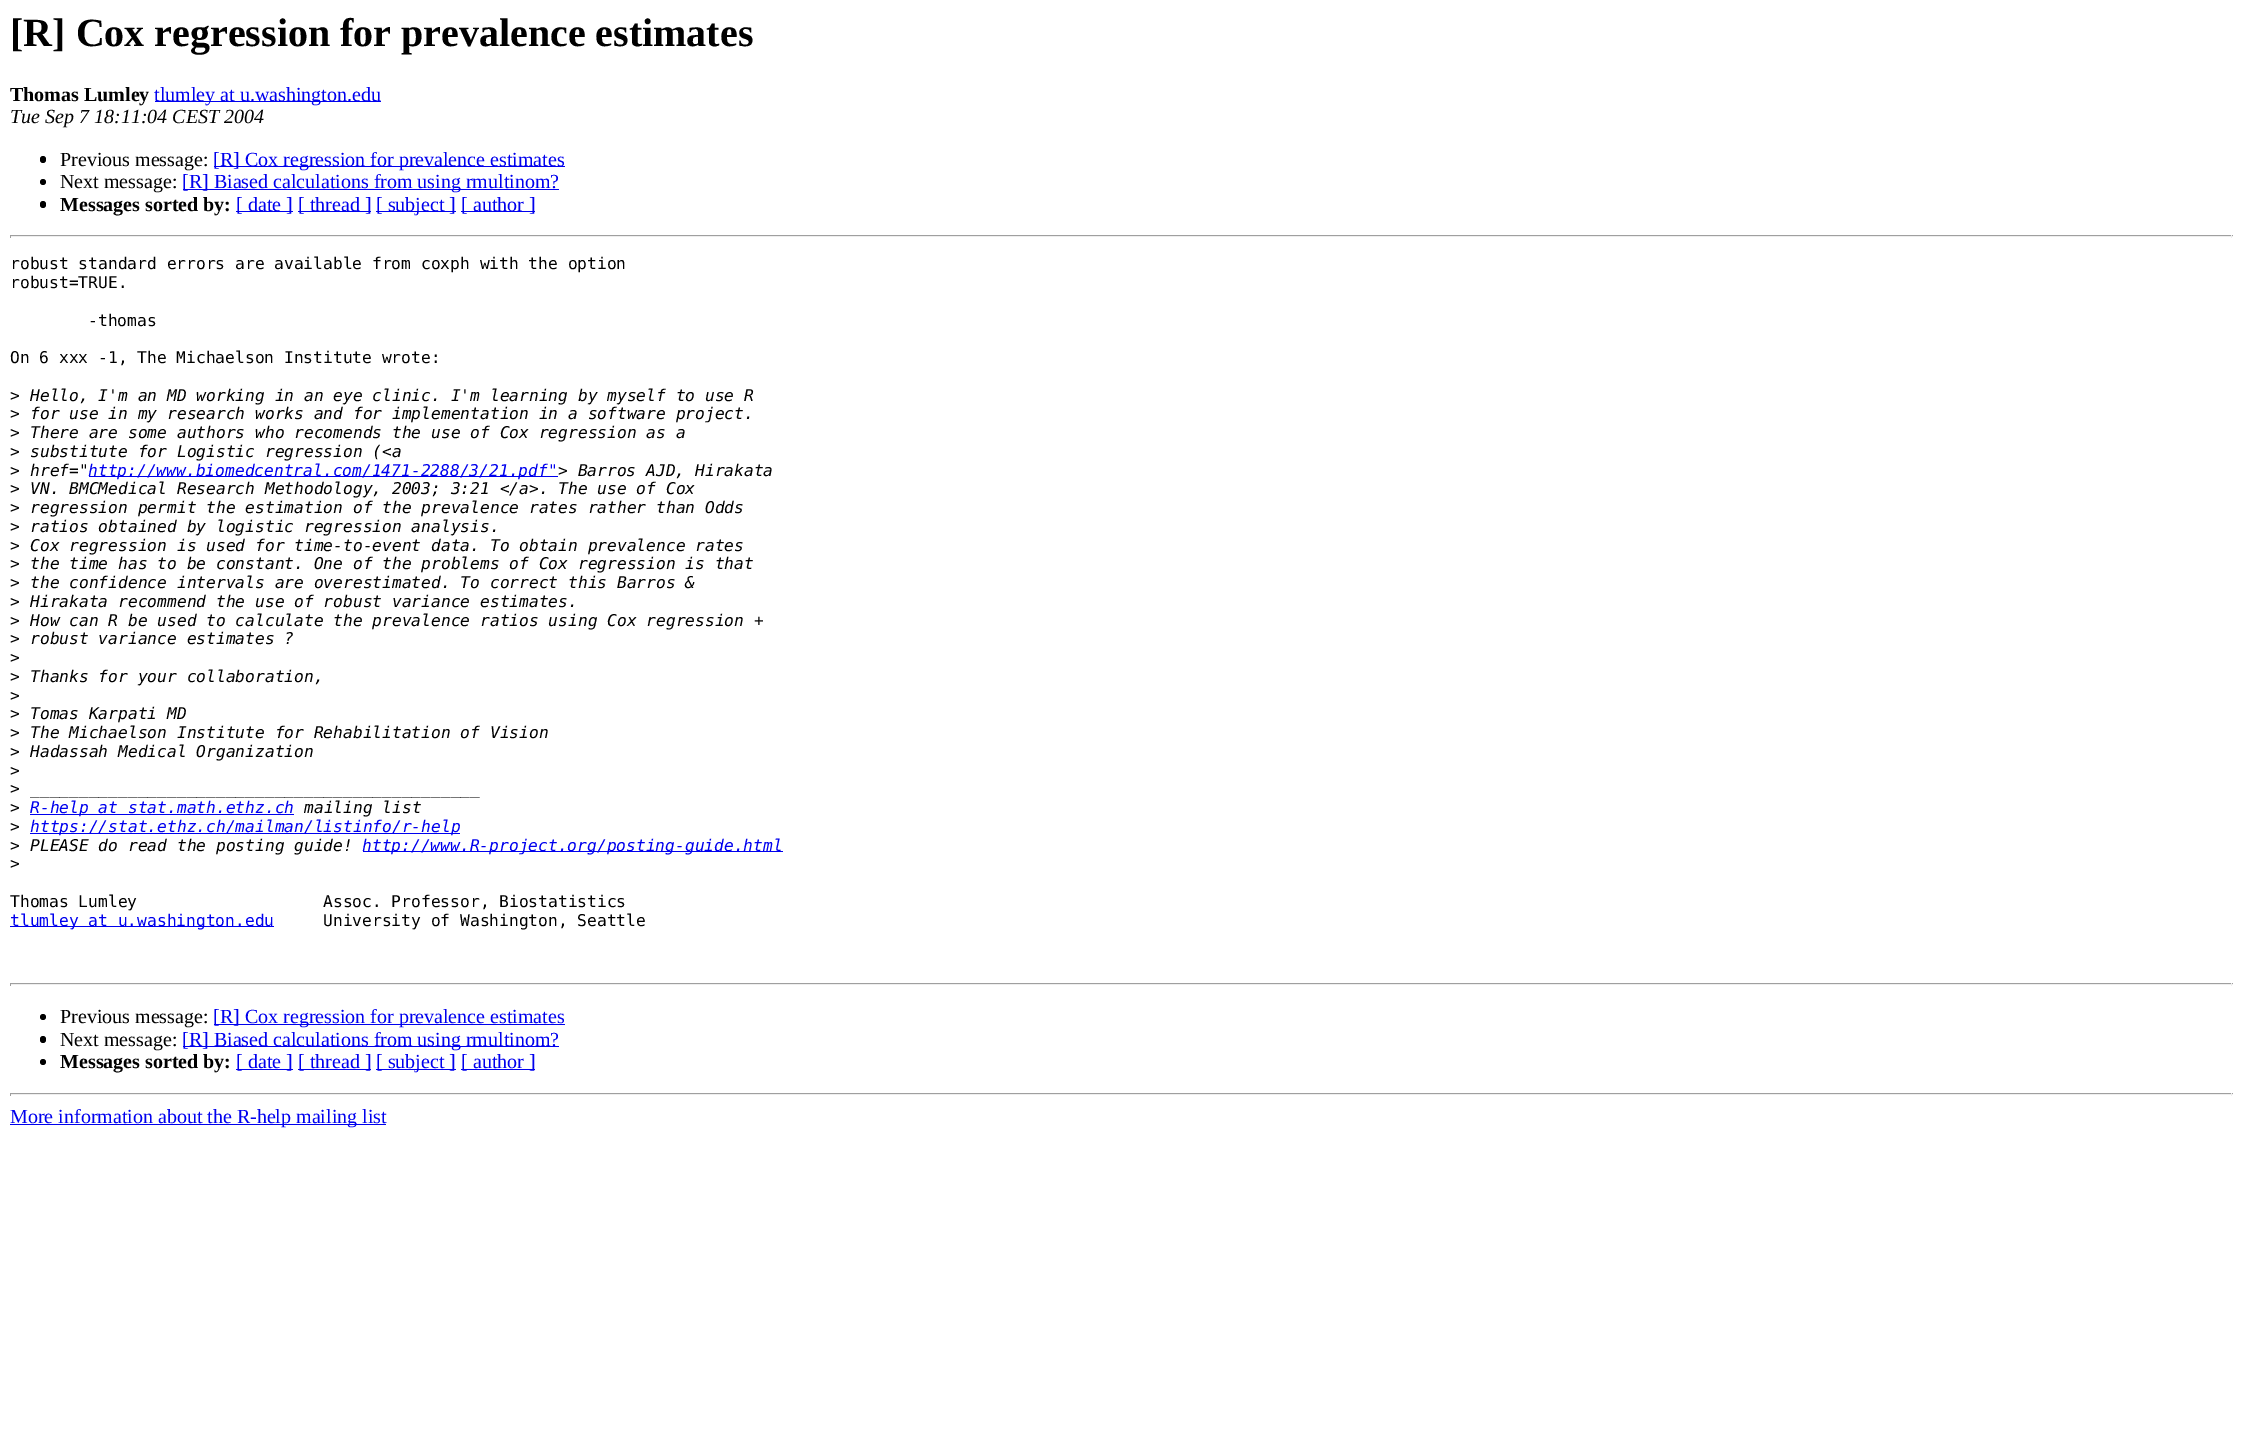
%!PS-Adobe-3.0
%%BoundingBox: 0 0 2242 1430
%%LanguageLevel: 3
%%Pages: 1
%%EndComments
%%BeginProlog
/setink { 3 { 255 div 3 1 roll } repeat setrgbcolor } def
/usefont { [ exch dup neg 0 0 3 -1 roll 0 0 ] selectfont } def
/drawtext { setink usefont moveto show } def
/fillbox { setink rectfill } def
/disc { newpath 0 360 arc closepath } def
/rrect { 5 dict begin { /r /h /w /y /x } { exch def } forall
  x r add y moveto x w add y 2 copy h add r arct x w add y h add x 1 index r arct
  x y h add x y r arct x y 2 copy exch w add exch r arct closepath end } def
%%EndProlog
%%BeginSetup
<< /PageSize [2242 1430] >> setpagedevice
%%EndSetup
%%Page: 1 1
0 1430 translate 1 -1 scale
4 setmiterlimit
0 0 2242 1430 255 255 255 fillbox
([R] Cox regression for prevalence estimates) 10 46 /LiberationSerif-Bold 40 0 0 0 drawtext
(Thomas Lumley) 10 101 /LiberationSerif-Bold 20 0 0 0 drawtext
155 101 226 1 0 0 238 fillbox
(tlumley at u.washington.edu) 154 101 /LiberationSerif-Regular 20 0 0 238 drawtext
(Tue Sep 7 18:11:04 CEST 2004) 10 123 /LiberationSerif-Italic 20 0 0 0 drawtext
40 156 6 7 3 rrect fill
(Previous message:) 60 166 /LiberationSerif-Regular 20 0 0 0 drawtext
214 166 351 1 0 0 238 fillbox
([R] Cox regression for prevalence estimates) 213 166 /LiberationSerif-Regular 20 0 0 238 drawtext
0 0 0 setink
43 182 3 disc fill
(Next message:) 60 188 /LiberationSerif-Regular 20 0 0 0 drawtext
183 189 376 1 0 0 238 fillbox
([R] Biased calculations from using rmultinom?) 182 188 /LiberationSerif-Regular 20 0 0 238 drawtext
0 0 0 setink
40 201 6 7 3 rrect fill
(Messages sorted by:) 60 211 /LiberationSerif-Bold 20 0 0 0 drawtext
236 211 57 1 0 0 238 fillbox
([ date ]) 236 211 /LiberationSerif-Regular 20 0 0 238 drawtext
298 211 73 1 0 0 238 fillbox
([ thread ]) 298 211 /LiberationSerif-Regular 20 0 0 238 drawtext
376 211 80 1 0 0 238 fillbox
([ subject ]) 376 211 /LiberationSerif-Regular 20 0 0 238 drawtext
461 211 74 1 0 0 238 fillbox
([ author ]) 461 211 /LiberationSerif-Regular 20 0 0 238 drawtext
10 235 2223 1 159 159 159 fillbox
2231 235 1 3 238 238 238 fillbox
10 236 2223 1 238 238 238 fillbox
10 235 1 3 159 159 159 fillbox
(robust standard errors are available from coxph with the option) 10 269 /DejaVuSansMono-Regular 16.25 0 0 0 drawtext
(robust=TRUE.) 10 288 /DejaVuSansMono-Regular 16.25 0 0 0 drawtext
(-thomas) 88 326 /DejaVuSansMono-Regular 16.25 0 0 0 drawtext
(On 6 xxx -1, The Michaelson Institute wrote:) 10 363 /DejaVuSansMono-Regular 16.25 0 0 0 drawtext
(>) 10 401 /DejaVuSansMono-Regular 16.25 0 0 0 drawtext
(Hello, I'm an MD working in an eye clinic. I'm learning by myself to use R) 30 401 /DejaVuSansMono-Italic 16.25 0 0 0 drawtext
(>) 10 419 /DejaVuSansMono-Regular 16.25 0 0 0 drawtext
(for use in my research works and for implementation in a software project.) 30 419 /DejaVuSansMono-Italic 16.25 0 0 0 drawtext
(>) 10 438 /DejaVuSansMono-Regular 16.25 0 0 0 drawtext
(There are some authors who recomends the use of Cox regression as a) 30 438 /DejaVuSansMono-Italic 16.25 0 0 0 drawtext
(>) 10 457 /DejaVuSansMono-Regular 16.25 0 0 0 drawtext
(substitute for Logistic regression \(<a) 30 457 /DejaVuSansMono-Italic 16.25 0 0 0 drawtext
(>) 10 476 /DejaVuSansMono-Regular 16.25 0 0 0 drawtext
(href=") 30 476 /DejaVuSansMono-Italic 16.25 0 0 0 drawtext
89 476 469 1 0 0 238 fillbox
(http://www.biomedcentral.com/1471-2288/3/21.pdf") 88 476 /DejaVuSansMono-Italic 16.25 0 0 238 drawtext
(> Barros AJD, Hirakata) 558 476 /DejaVuSansMono-Italic 16.25 0 0 0 drawtext
(>) 10 494 /DejaVuSansMono-Regular 16.25 0 0 0 drawtext
(VN. BMCMedical Research Methodology, 2003; 3:21 </a>. The use of Cox) 30 494 /DejaVuSansMono-Italic 16.25 0 0 0 drawtext
(>) 10 513 /DejaVuSansMono-Regular 16.25 0 0 0 drawtext
(regression permit the estimation of the prevalence rates rather than Odds) 30 513 /DejaVuSansMono-Italic 16.25 0 0 0 drawtext
(>) 10 532 /DejaVuSansMono-Regular 16.25 0 0 0 drawtext
(ratios obtained by logistic regression analysis.) 30 532 /DejaVuSansMono-Italic 16.25 0 0 0 drawtext
(>) 10 551 /DejaVuSansMono-Regular 16.25 0 0 0 drawtext
(Cox regression is used for time-to-event data. To obtain prevalence rates) 30 551 /DejaVuSansMono-Italic 16.25 0 0 0 drawtext
(>) 10 569 /DejaVuSansMono-Regular 16.25 0 0 0 drawtext
(the time has to be constant. One of the problems of Cox regression is that) 30 569 /DejaVuSansMono-Italic 16.25 0 0 0 drawtext
(>) 10 588 /DejaVuSansMono-Regular 16.25 0 0 0 drawtext
(the confidence intervals are overestimated. To correct this Barros &) 30 588 /DejaVuSansMono-Italic 16.25 0 0 0 drawtext
(>) 10 607 /DejaVuSansMono-Regular 16.25 0 0 0 drawtext
(Hirakata recommend the use of robust variance estimates.) 30 607 /DejaVuSansMono-Italic 16.25 0 0 0 drawtext
(>) 10 626 /DejaVuSansMono-Regular 16.25 0 0 0 drawtext
(How can R be used to calculate the prevalence ratios using Cox regression +) 30 626 /DejaVuSansMono-Italic 16.25 0 0 0 drawtext
(>) 10 644 /DejaVuSansMono-Regular 16.25 0 0 0 drawtext
(robust variance estimates ?) 30 644 /DejaVuSansMono-Italic 16.25 0 0 0 drawtext
(>) 10 663 /DejaVuSansMono-Regular 16.25 0 0 0 drawtext
(>) 10 682 /DejaVuSansMono-Regular 16.25 0 0 0 drawtext
(Thanks for your collaboration,) 30 682 /DejaVuSansMono-Italic 16.25 0 0 0 drawtext
(>) 10 701 /DejaVuSansMono-Regular 16.25 0 0 0 drawtext
(>) 10 719 /DejaVuSansMono-Regular 16.25 0 0 0 drawtext
(Tomas Karpati MD) 30 719 /DejaVuSansMono-Italic 16.25 0 0 0 drawtext
(>) 10 738 /DejaVuSansMono-Regular 16.25 0 0 0 drawtext
(The Michaelson Institute for Rehabilitation of Vision) 30 738 /DejaVuSansMono-Italic 16.25 0 0 0 drawtext
(>) 10 757 /DejaVuSansMono-Regular 16.25 0 0 0 drawtext
(Hadassah Medical Organization) 30 757 /DejaVuSansMono-Italic 16.25 0 0 0 drawtext
(>) 10 776 /DejaVuSansMono-Regular 16.25 0 0 0 drawtext
(>) 10 794 /DejaVuSansMono-Regular 16.25 0 0 0 drawtext
(______________________________________________) 30 794 /DejaVuSansMono-Italic 16.25 0 0 0 drawtext
(>) 10 813 /DejaVuSansMono-Regular 16.25 0 0 0 drawtext
30 814 264 1 0 0 238 fillbox
(R-help at stat.math.ethz.ch) 30 813 /DejaVuSansMono-Italic 16.25 0 0 238 drawtext
(mailing list) 304 813 /DejaVuSansMono-Italic 16.25 0 0 0 drawtext
(>) 10 832 /DejaVuSansMono-Regular 16.25 0 0 0 drawtext
30 833 430 1 0 0 238 fillbox
(https://stat.ethz.ch/mailman/listinfo/r-help) 30 832 /DejaVuSansMono-Italic 16.25 0 0 238 drawtext
(>) 10 851 /DejaVuSansMono-Regular 16.25 0 0 0 drawtext
(PLEASE do read the posting guide!) 30 851 /DejaVuSansMono-Italic 16.25 0 0 0 drawtext
363 851 420 1 0 0 238 fillbox
(http://www.R-project.org/posting-guide.html) 362 851 /DejaVuSansMono-Italic 16.25 0 0 238 drawtext
(>) 10 869 /DejaVuSansMono-Regular 16.25 0 0 0 drawtext
(Thomas Lumley) 10 907 /DejaVuSansMono-Regular 16.25 0 0 0 drawtext
(Assoc. Professor, Biostatistics) 323 907 /DejaVuSansMono-Regular 16.25 0 0 0 drawtext
10 926 264 1 0 0 238 fillbox
(tlumley at u.washington.edu) 10 926 /DejaVuSansMono-Regular 16.25 0 0 238 drawtext
(University of Washington, Seattle) 323 926 /DejaVuSansMono-Regular 16.25 0 0 0 drawtext
10 983 2223 1 159 159 159 fillbox
2231 983 1 3 238 238 238 fillbox
10 984 2223 1 238 238 238 fillbox
10 983 1 3 159 159 159 fillbox
0 0 0 setink
43 1017 3 disc fill
(Previous message:) 60 1023 /LiberationSerif-Regular 20 0 0 0 drawtext
214 1024 351 1 0 0 238 fillbox
([R] Cox regression for prevalence estimates) 213 1023 /LiberationSerif-Regular 20 0 0 238 drawtext
0 0 0 setink
40 1036 6 7 3 rrect fill
(Next message:) 60 1046 /LiberationSerif-Regular 20 0 0 0 drawtext
183 1046 376 1 0 0 238 fillbox
([R] Biased calculations from using rmultinom?) 182 1046 /LiberationSerif-Regular 20 0 0 238 drawtext
0 0 0 setink
43 1062 3 disc fill
(Messages sorted by:) 60 1068 /LiberationSerif-Bold 20 0 0 0 drawtext
236 1069 57 1 0 0 238 fillbox
([ date ]) 236 1068 /LiberationSerif-Regular 20 0 0 238 drawtext
298 1069 73 1 0 0 238 fillbox
([ thread ]) 298 1068 /LiberationSerif-Regular 20 0 0 238 drawtext
376 1069 80 1 0 0 238 fillbox
([ subject ]) 376 1068 /LiberationSerif-Regular 20 0 0 238 drawtext
461 1069 74 1 0 0 238 fillbox
([ author ]) 461 1068 /LiberationSerif-Regular 20 0 0 238 drawtext
10 1093 2223 1 159 159 159 fillbox
2231 1093 1 3 238 238 238 fillbox
10 1094 2223 1 238 238 238 fillbox
10 1093 1 3 159 159 159 fillbox
10 1124 376 1 0 0 238 fillbox
(More information about the R-help mailing list) 10 1123 /LiberationSerif-Regular 20 0 0 238 drawtext
showpage
%%EOF
